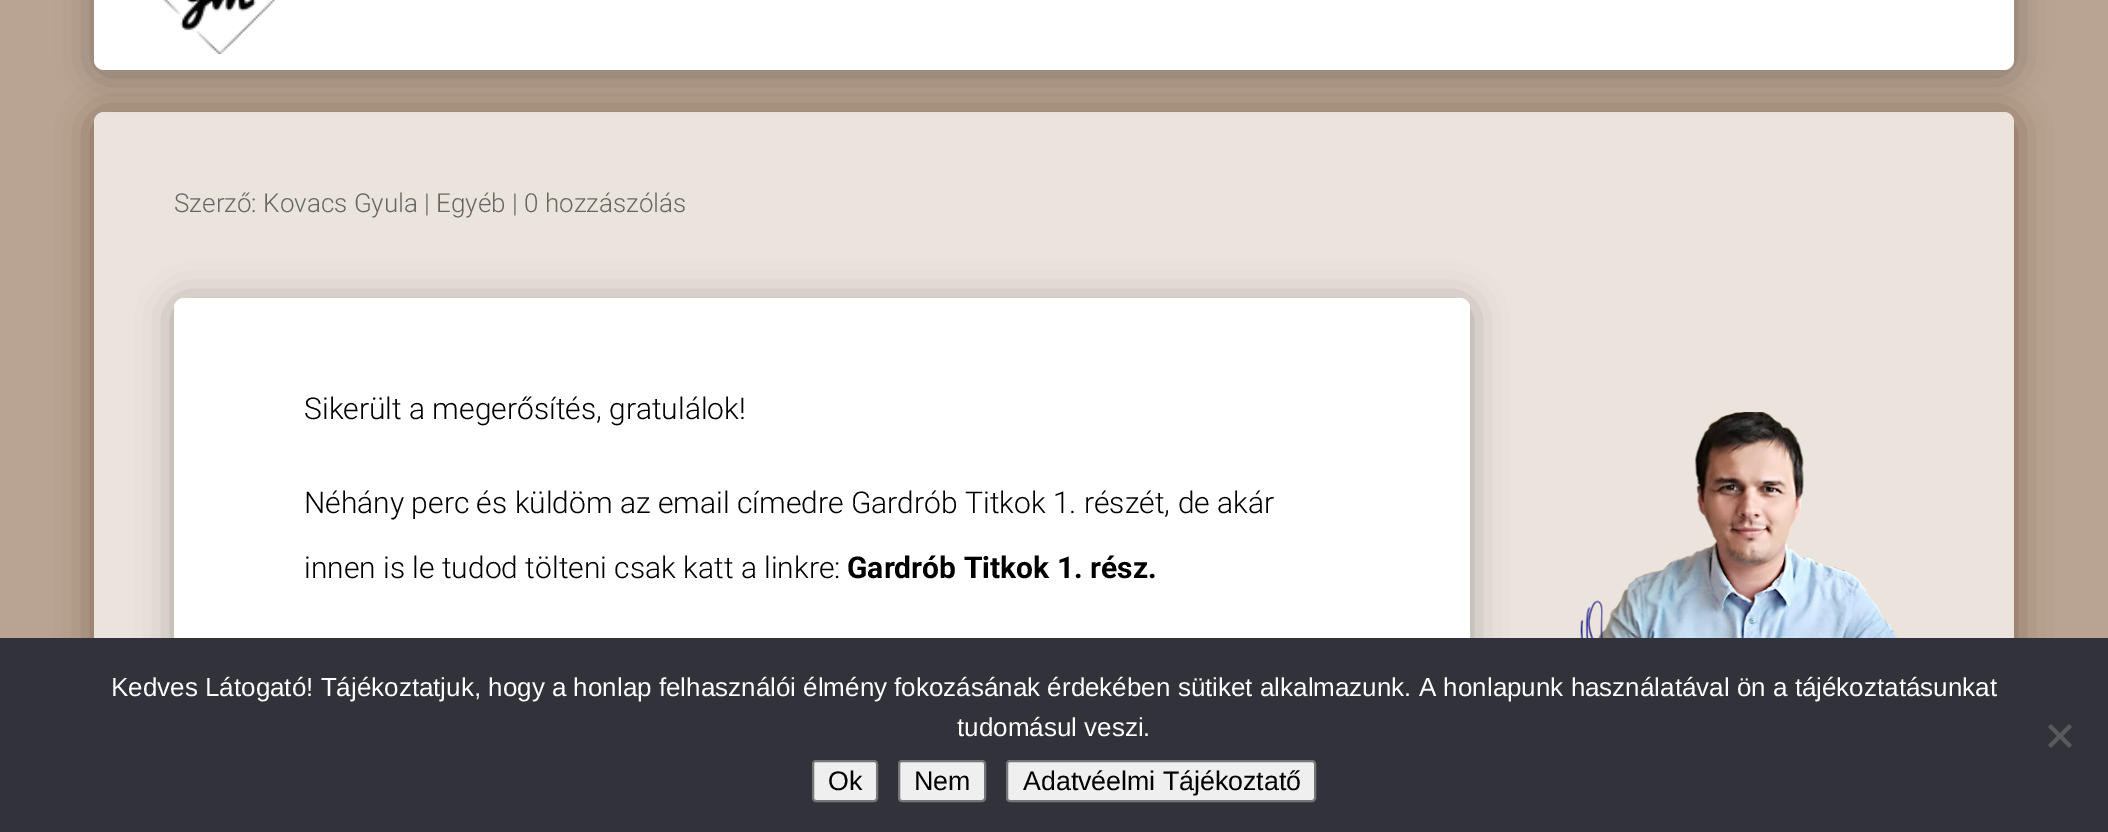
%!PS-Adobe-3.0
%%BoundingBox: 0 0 2108 832
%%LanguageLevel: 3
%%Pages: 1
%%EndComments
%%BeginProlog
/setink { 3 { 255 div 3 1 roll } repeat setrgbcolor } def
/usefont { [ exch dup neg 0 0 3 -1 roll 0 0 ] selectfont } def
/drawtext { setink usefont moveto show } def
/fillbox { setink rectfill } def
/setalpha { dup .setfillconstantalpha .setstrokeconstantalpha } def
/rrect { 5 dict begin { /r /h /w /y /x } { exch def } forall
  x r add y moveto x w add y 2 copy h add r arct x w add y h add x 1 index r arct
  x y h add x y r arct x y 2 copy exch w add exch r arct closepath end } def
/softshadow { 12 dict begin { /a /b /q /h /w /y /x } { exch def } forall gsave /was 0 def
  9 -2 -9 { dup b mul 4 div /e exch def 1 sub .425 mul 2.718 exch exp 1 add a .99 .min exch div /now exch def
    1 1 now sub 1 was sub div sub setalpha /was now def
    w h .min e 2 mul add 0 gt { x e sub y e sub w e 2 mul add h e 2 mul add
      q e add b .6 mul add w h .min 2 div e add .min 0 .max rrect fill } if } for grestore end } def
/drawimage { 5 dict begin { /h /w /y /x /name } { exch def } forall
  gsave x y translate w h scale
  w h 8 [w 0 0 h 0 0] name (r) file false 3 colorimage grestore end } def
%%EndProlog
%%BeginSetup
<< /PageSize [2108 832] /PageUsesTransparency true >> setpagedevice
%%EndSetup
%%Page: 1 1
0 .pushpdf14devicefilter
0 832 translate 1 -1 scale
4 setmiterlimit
0 0 2108 832 185 164 147 fillbox
127 100 80 setink
94 116 1920 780 10 18 1 softshadow
235 228 220 setink
94 112 1920 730 10 rrect fill
0 0 0 setink
94 -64 1920 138 10 18 0.3 softshadow
255 255 255 setink
94 -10 1920 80 10 rrect fill
(assets/img1.rgb) 163 0 112 54 drawimage
(Szerző: Kovacs Gyula | Egyéb | 0 hozzászólás) 174 212 /Roboto-Light 26 102 102 102 drawtext
0 0 0 setink
174 302 1296 474 10 18 0.3 softshadow
255 255 255 setink
174 298 1296 474 10 rrect fill
(Sikerült a megerősítés, gratulálok!) 304 419 /Roboto-Light 30 0 0 0 drawtext
(Néhány perc és küldöm az email címedre Gardrób Titkok 1. részét, de akár) 304 513 /Roboto-Light 30 0 0 0 drawtext
(innen is le tudod tölteni csak katt a linkre:) 304 578 /Roboto-Light 30 0 0 0 drawtext
(Gardrób Titkok 1. rész.) 847 578 /Roboto-Bold 30 0 0 0 drawtext
(assets/img2.rgb) 1580 412 318 226 drawimage
0 638 2108 194 50 50 58 fillbox
(Kedves Látogató! Tájékoztatjuk, hogy a honlap felhasználói élmény fokozásának érdekében sütiket alkalmazunk. A honlapunk használatával ön a tájékoztatásunkat) 111 696 /LiberationSans-Regular 26 255 255 255 drawtext
(tudomásul veszi.) 957 736 /LiberationSans-Regular 26 255 255 255 drawtext
89 89 93 setink
2069 724 moveto 2072 727 lineto 2051 748 lineto 2048 745 lineto closepath fill
2048 727 moveto 2051 724 lineto 2072 745 lineto 2069 748 lineto closepath fill
239 239 239 setink
813 761 64 40 3 rrect gsave fill grestore
118 118 118 setink
2 setlinewidth
stroke
(Ok) 828 790 /LiberationSans-Regular 26.75 0 0 0 drawtext
239 239 239 setink
899 761 86 40 3 rrect gsave fill grestore
118 118 118 setink
stroke
(Nem) 914 790 /LiberationSans-Regular 26.75 0 0 0 drawtext
239 239 239 setink
1007 761 308 40 3 rrect gsave fill grestore
118 118 118 setink
stroke
(Adatvéelmi Tájékoztatő) 1023 790 /LiberationSans-Regular 26.75 0 0 0 drawtext
.poppdf14devicefilter showpage
%%EOF
